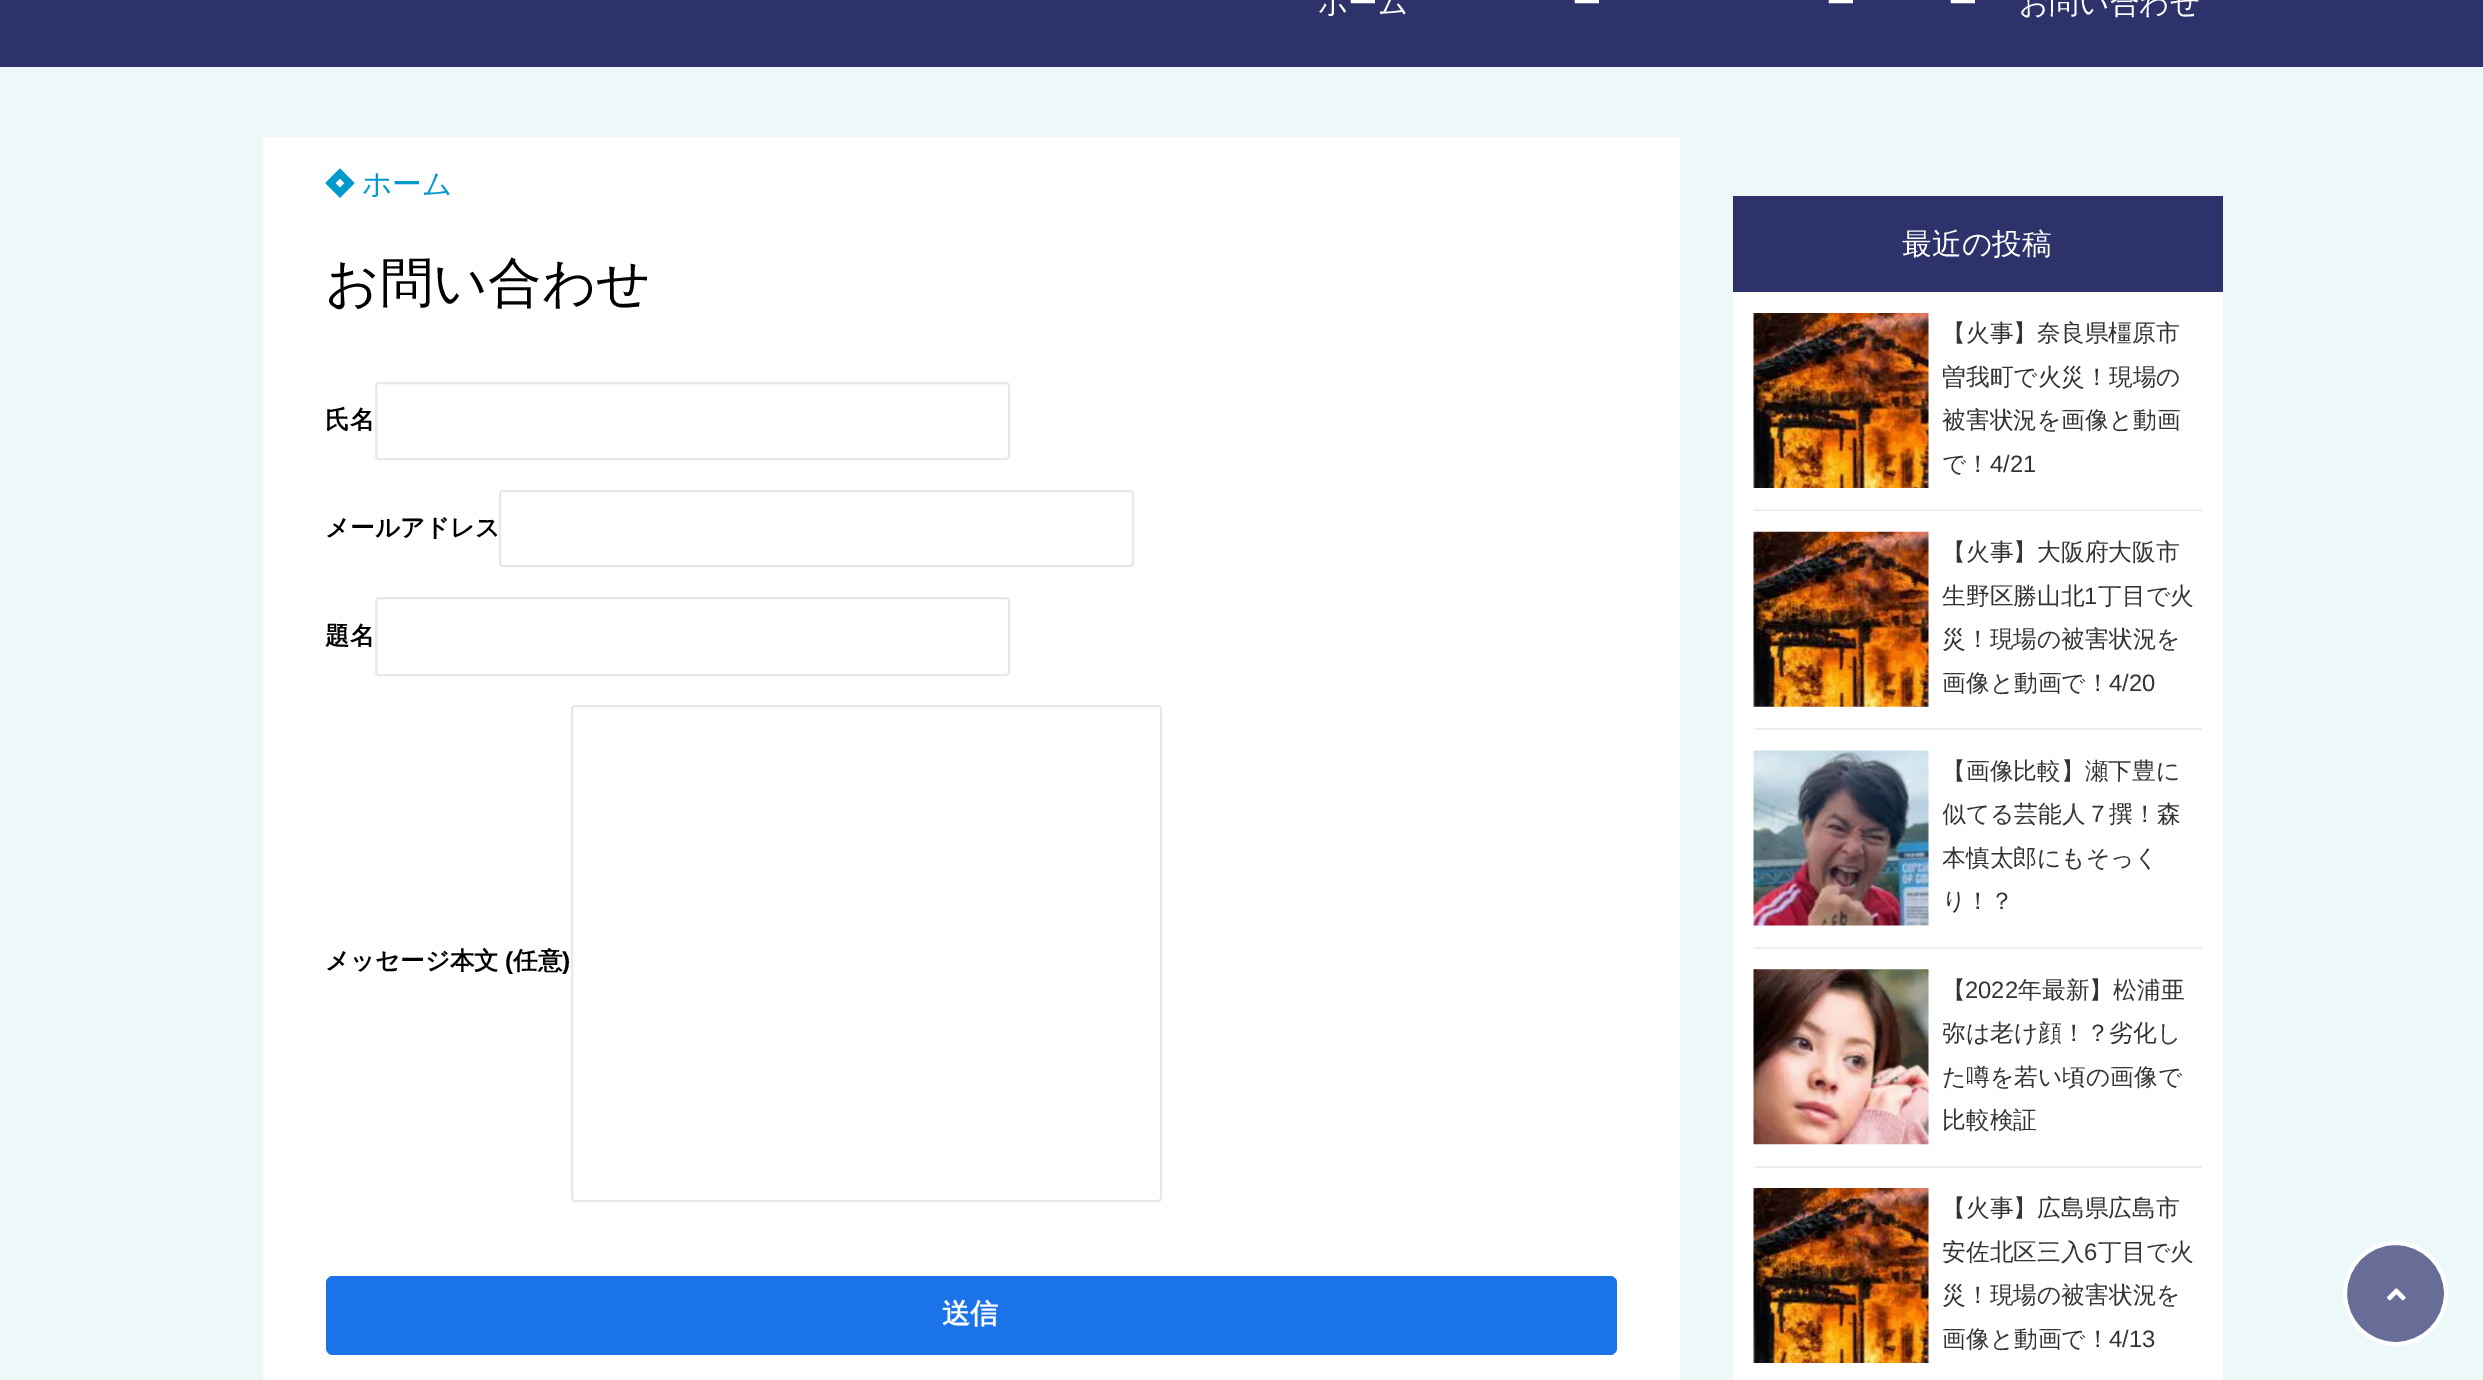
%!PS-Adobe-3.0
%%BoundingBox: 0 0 2483 1380
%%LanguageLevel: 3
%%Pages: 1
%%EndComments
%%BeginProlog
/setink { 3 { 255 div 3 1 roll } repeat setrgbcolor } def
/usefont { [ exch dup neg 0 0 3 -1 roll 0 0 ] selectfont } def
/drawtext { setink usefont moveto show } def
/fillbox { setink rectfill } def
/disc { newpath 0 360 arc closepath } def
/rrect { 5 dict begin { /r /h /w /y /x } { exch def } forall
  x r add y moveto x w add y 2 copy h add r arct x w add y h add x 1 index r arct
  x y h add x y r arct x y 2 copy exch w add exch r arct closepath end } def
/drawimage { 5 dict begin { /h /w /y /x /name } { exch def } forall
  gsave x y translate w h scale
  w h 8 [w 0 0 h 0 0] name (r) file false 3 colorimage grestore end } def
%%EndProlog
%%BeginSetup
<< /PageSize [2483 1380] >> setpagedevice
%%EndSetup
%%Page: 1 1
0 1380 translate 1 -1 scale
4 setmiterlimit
0 0 2483 1380 237 248 249 fillbox
0 0 2483 67 46 50 107 fillbox
(ホーム) 1318 13 /WenQuanYiZenHei-Medium 29.75 255 255 255 drawtext
(ー) 1572 13 /WenQuanYiZenHei-Medium 29.75 255 255 255 drawtext
(ー) 1826 13 /WenQuanYiZenHei-Medium 29.75 255 255 255 drawtext
(ー) 1948 13 /WenQuanYiZenHei-Medium 29.75 255 255 255 drawtext
(お問い合わせ) 2019 13 /WenQuanYiZenHei-Medium 29.75 255 255 255 drawtext
263 137 1417 1243 255 255 255 fillbox
(assets/img1.rgb) 325 168 30 30 drawimage
(ホーム) 362 194 /WenQuanYiZenHei-Medium 29.75 0 153 204 drawtext
(お問い合わせ) 325 301 /WenQuanYiZenHei-Medium 53.5 0 0 0 drawtext
(氏名) 325 428 /WenQuanYiZenHei-Bold 24.5 0 0 0 drawtext
232 232 232 setink
2 setlinewidth
376 383 633 76 3 rrect stroke
(メールアドレス) 325 536 /WenQuanYiZenHei-Bold 24.5 0 0 0 drawtext
232 232 232 setink
500 491 633 75 3 rrect stroke
(題名) 325 644 /WenQuanYiZenHei-Bold 24.5 0 0 0 drawtext
232 232 232 setink
376 598 633 77 3 rrect stroke
(メッセージ本文) 325 969 /WenQuanYiZenHei-Bold 24.5 0 0 0 drawtext
(\() 505 969 /LiberationSans-Bold 24.5 0 0 0 drawtext
(任意) 513 969 /WenQuanYiZenHei-Bold 24.5 0 0 0 drawtext
(\)) 562 969 /LiberationSans-Bold 24.5 0 0 0 drawtext
232 232 232 setink
572 706 589 495 3 rrect stroke
26 115 232 setink
326 1276 1291 79 7 rrect fill
(送信) 942 1323 /WenQuanYiZenHei-Bold 28 255 255 255 drawtext
1733 196 490 96 46 50 107 fillbox
(最近の投稿) 1902 254 /WenQuanYiZenHei-Medium 29.75 255 255 255 drawtext
1733 292 490 1088 255 255 255 fillbox
1754 509 448 2 238 238 238 fillbox
(assets/img2.rgb) 1753 313 176 175 drawimage
(【火事】奈良県橿原市) 1942 341 /WenQuanYiZenHei-Medium 23.75 51 51 51 drawtext
gsave
1943 313 259 175 rectclip
(曽我町で火災！現場の) 1942 385 /WenQuanYiZenHei-Medium 23.75 51 51 51 drawtext
grestore
(被害状況を画像と動画) 1942 428 /WenQuanYiZenHei-Medium 23.75 51 51 51 drawtext
(で！) 1942 472 /WenQuanYiZenHei-Medium 23.75 51 51 51 drawtext
(4/21) 1990 472 /LiberationSans-Regular 23.75 51 51 51 drawtext
1754 728 448 2 238 238 238 fillbox
(assets/img3.rgb) 1753 531 176 176 drawimage
(【火事】大阪府大阪市) 1942 560 /WenQuanYiZenHei-Medium 23.75 51 51 51 drawtext
(生野区勝山北) 1942 604 /WenQuanYiZenHei-Medium 23.75 51 51 51 drawtext
(1) 2084 604 /LiberationSans-Regular 23.75 51 51 51 drawtext
(丁目で火) 2098 604 /WenQuanYiZenHei-Medium 23.75 51 51 51 drawtext
(災！現場の被害状況を) 1942 647 /WenQuanYiZenHei-Medium 23.75 51 51 51 drawtext
(画像と動画で！) 1942 691 /WenQuanYiZenHei-Medium 23.75 51 51 51 drawtext
(4/20) 2109 691 /LiberationSans-Regular 23.75 51 51 51 drawtext
1754 947 448 2 238 238 238 fillbox
(assets/img4.rgb) 1753 750 176 176 drawimage
(【画像比較】瀬下豊に) 1942 779 /WenQuanYiZenHei-Medium 23.75 51 51 51 drawtext
gsave
1943 751 259 175 rectclip
(似てる芸能人７撰！森) 1942 822 /WenQuanYiZenHei-Medium 23.75 51 51 51 drawtext
(本慎太郎にもそっく) 1942 866 /WenQuanYiZenHei-Medium 23.75 51 51 51 drawtext
grestore
(り！？) 1942 909 /WenQuanYiZenHei-Medium 23.75 51 51 51 drawtext
1754 1166 448 2 238 238 238 fillbox
(assets/img5.rgb) 1753 969 176 176 drawimage
(【) 1942 998 /WenQuanYiZenHei-Medium 23.75 51 51 51 drawtext
(2022) 1965 998 /LiberationSans-Regular 23.75 51 51 51 drawtext
(年最新】松浦亜) 2018 998 /WenQuanYiZenHei-Medium 23.75 51 51 51 drawtext
gsave
1943 970 259 175 rectclip
(弥は老け顔！？劣化し) 1942 1041 /WenQuanYiZenHei-Medium 23.75 51 51 51 drawtext
grestore
(た噂を若い頃の画像で) 1942 1085 /WenQuanYiZenHei-Medium 23.75 51 51 51 drawtext
(比較検証) 1942 1128 /WenQuanYiZenHei-Medium 23.75 51 51 51 drawtext
(assets/img6.rgb) 1753 1188 176 175 drawimage
(【火事】広島県広島市) 1942 1216 /WenQuanYiZenHei-Medium 23.75 51 51 51 drawtext
gsave
1943 1188 259 175 rectclip
(安佐北区三入) 1942 1260 /WenQuanYiZenHei-Medium 23.75 51 51 51 drawtext
grestore
(6) 2084 1260 /LiberationSans-Regular 23.75 51 51 51 drawtext
(丁目で火) 2098 1260 /WenQuanYiZenHei-Medium 23.75 51 51 51 drawtext
(災！現場の被害状況を) 1942 1303 /WenQuanYiZenHei-Medium 23.75 51 51 51 drawtext
(画像と動画で！) 1942 1347 /WenQuanYiZenHei-Medium 23.75 51 51 51 drawtext
(4/13) 2109 1347 /LiberationSans-Regular 23.75 51 51 51 drawtext
103 109 150 setink
2395.5 1293.5 50.5 disc gsave fill grestore
255 255 255 setink
4 setlinewidth
stroke
(assets/img7.rgb) 2387 1288 19 13 drawimage
showpage
%%EOF
